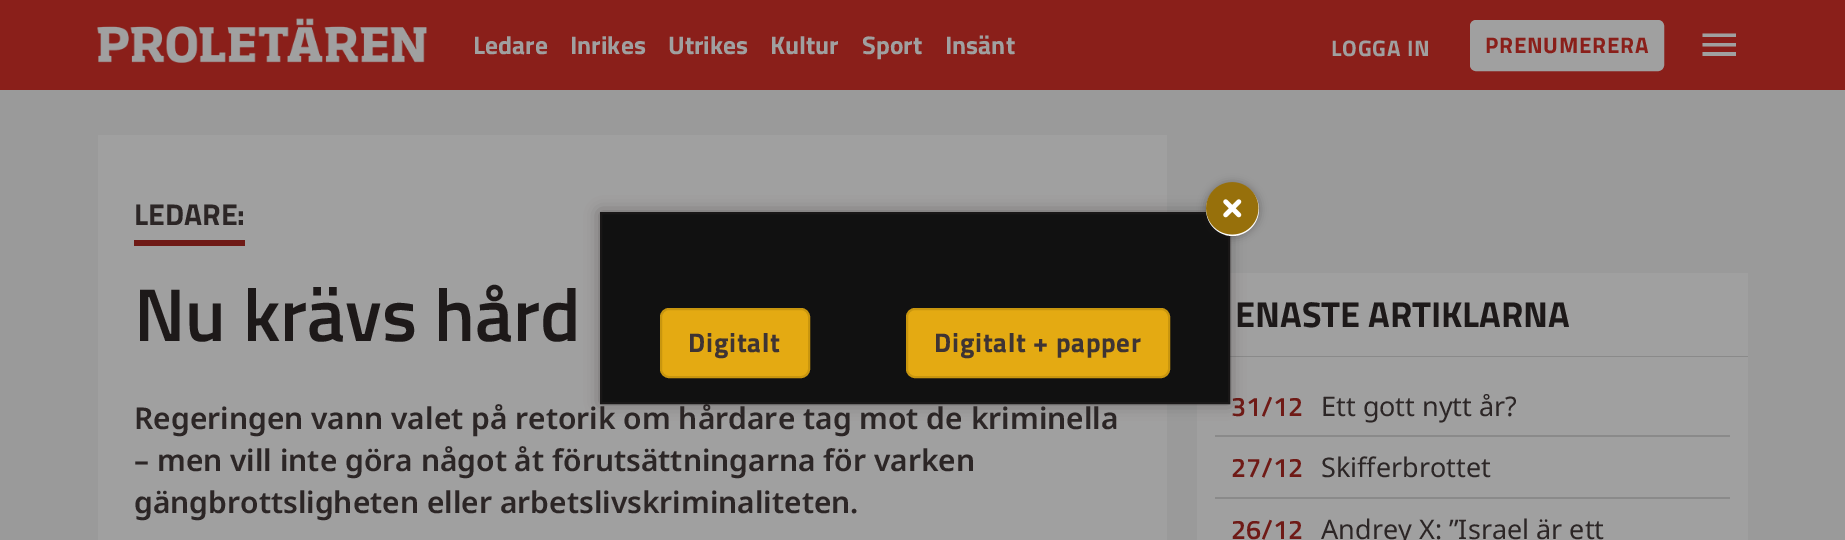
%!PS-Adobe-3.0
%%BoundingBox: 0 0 1845 540
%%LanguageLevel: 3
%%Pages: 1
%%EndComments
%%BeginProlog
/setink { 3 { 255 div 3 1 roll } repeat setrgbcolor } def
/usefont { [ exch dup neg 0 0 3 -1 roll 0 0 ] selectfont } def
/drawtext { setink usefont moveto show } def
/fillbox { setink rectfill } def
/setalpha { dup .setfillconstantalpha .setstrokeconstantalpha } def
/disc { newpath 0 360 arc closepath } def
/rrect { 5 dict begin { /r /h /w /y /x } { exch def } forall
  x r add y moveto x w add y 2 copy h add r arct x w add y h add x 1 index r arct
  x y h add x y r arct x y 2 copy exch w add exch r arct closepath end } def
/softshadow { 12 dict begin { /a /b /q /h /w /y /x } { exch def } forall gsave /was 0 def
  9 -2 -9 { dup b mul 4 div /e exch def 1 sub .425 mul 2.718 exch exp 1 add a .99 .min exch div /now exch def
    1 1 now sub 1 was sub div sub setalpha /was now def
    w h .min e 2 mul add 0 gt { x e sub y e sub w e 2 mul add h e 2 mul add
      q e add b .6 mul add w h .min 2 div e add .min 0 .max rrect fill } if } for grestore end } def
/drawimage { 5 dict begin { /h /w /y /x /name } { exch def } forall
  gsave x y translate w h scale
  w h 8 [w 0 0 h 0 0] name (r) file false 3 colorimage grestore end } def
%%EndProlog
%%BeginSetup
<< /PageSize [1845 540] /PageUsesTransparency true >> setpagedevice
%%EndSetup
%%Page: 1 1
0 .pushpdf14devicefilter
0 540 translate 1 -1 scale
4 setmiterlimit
0 0 1845 540 138 31 26 fillbox
(assets/img1.rgb) 97 18 330 45 drawimage
(Ledare) 473 54 /TitilliumWeb-Bold 25.5 160 160 160 drawtext
(Inrikes) 570 54 /TitilliumWeb-Bold 25.5 160 160 160 drawtext
(Utrikes) 668 54 /TitilliumWeb-Bold 25.5 160 160 160 drawtext
(Kultur) 770 54 /TitilliumWeb-Bold 25.5 160 160 160 drawtext
(Sport) 862 54 /TitilliumWeb-Bold 25.5 160 160 160 drawtext
(Insänt) 945 54 /TitilliumWeb-Bold 25.5 160 160 160 drawtext
/TitilliumWeb-Bold 22.5 usefont
1331 56 moveto 0.75 0 (LOGGA IN) ashow
1471.5 21.5 191 48 4.5 rrect gsave fill grestore
3 setlinewidth
stroke
138 31 26 setink
1485 53 moveto 0.75 0 (PRENUMERERA) ashow
160 160 160 setink
1702.5 56 moveto 1702.5 52 lineto 1736 52 lineto 1736 56 lineto closepath 1702.5 46.5 moveto 1702.5 43 lineto 1736 43 lineto 1736 46.5 lineto closepath 1702.5 33.5 moveto 1736 33.5 lineto 1736 37 lineto 1702.5 37 lineto closepath fill
0 90 1845 450 154 154 154 fillbox
98 135 1069 405 160 160 160 fillbox
134 240 111 6 111 26 22 fillbox
(LEDARE:) 134 225 /TitilliumWeb-Bold 30 44 38 38 drawtext
(Nu krävs hård) 134 341 /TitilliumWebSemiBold-SemiBold 75 29 25 25 drawtext
(Regeringen vann valet på retorik om hårdare tag mot de kriminella) 134 429 /NotoSans-SemiBold 30 44 38 38 drawtext
(– men vill inte göra något åt förutsättningarna för varken) 134 471 /NotoSans-SemiBold 30 44 38 38 drawtext
(gängbrottsligheten eller arbetslivskriminaliteten.) 134 513 /NotoSans-SemiBold 30 44 38 38 drawtext
1230 356 518 1 138 138 138 fillbox
1230 273 518 83 160 160 160 fillbox
(ENASTE ARTIKLARNA) 1235 327 /TitilliumWeb-Bold 36 29 25 25 drawtext
1197 357 551 183 160 160 160 fillbox
1215 435 515 2 138 138 138 fillbox
(31/12) 1231 416 /TitilliumWebSemiBold-SemiBold 27 111 26 22 drawtext
(Ett gott nytt år?) 1321 416 /NotoSans-Regular 27 44 38 38 drawtext
1215 497 515 2 138 138 138 fillbox
(27/12) 1231 477 /TitilliumWebSemiBold-SemiBold 27 111 26 22 drawtext
(Skifferbrottet) 1321 477 /NotoSans-Regular 27 44 38 38 drawtext
(26/12) 1231 539 /TitilliumWebSemiBold-SemiBold 27 111 26 22 drawtext
(Andrey X: ”Israel är ett) 1321 539 /NotoSans-Regular 27 44 38 38 drawtext
37 31 31 setink
600 212 630 192 0 7.5 0.4 softshadow
17 17 17 setink
601 213 moveto 1229 213 lineto 1229 403 lineto 601 403 lineto closepath gsave fill grestore
25 23 23 setink
2 setlinewidth
stroke
37 31 31 setink
1206 183 53 53 26.5 4.5 0.4 softshadow
255 255 255 setink
1232.5 209.5 26.5 disc fill
(assets/img2.rgb) 1206 182 53 53 drawimage
228 170 18 setink
661 309 148 68 8 rrect gsave fill grestore
201 150 14 setink
stroke
/TitilliumWeb-Bold 27 usefont
62 52 52 setink
688 352 moveto 0.75 0 (Digitalt) ashow
228 170 18 setink
907 309 262 68 8 rrect gsave fill grestore
201 150 14 setink
stroke
62 52 52 setink
934 352 moveto 0.75 0 (Digitalt + papper) ashow
.poppdf14devicefilter showpage
%%EOF
